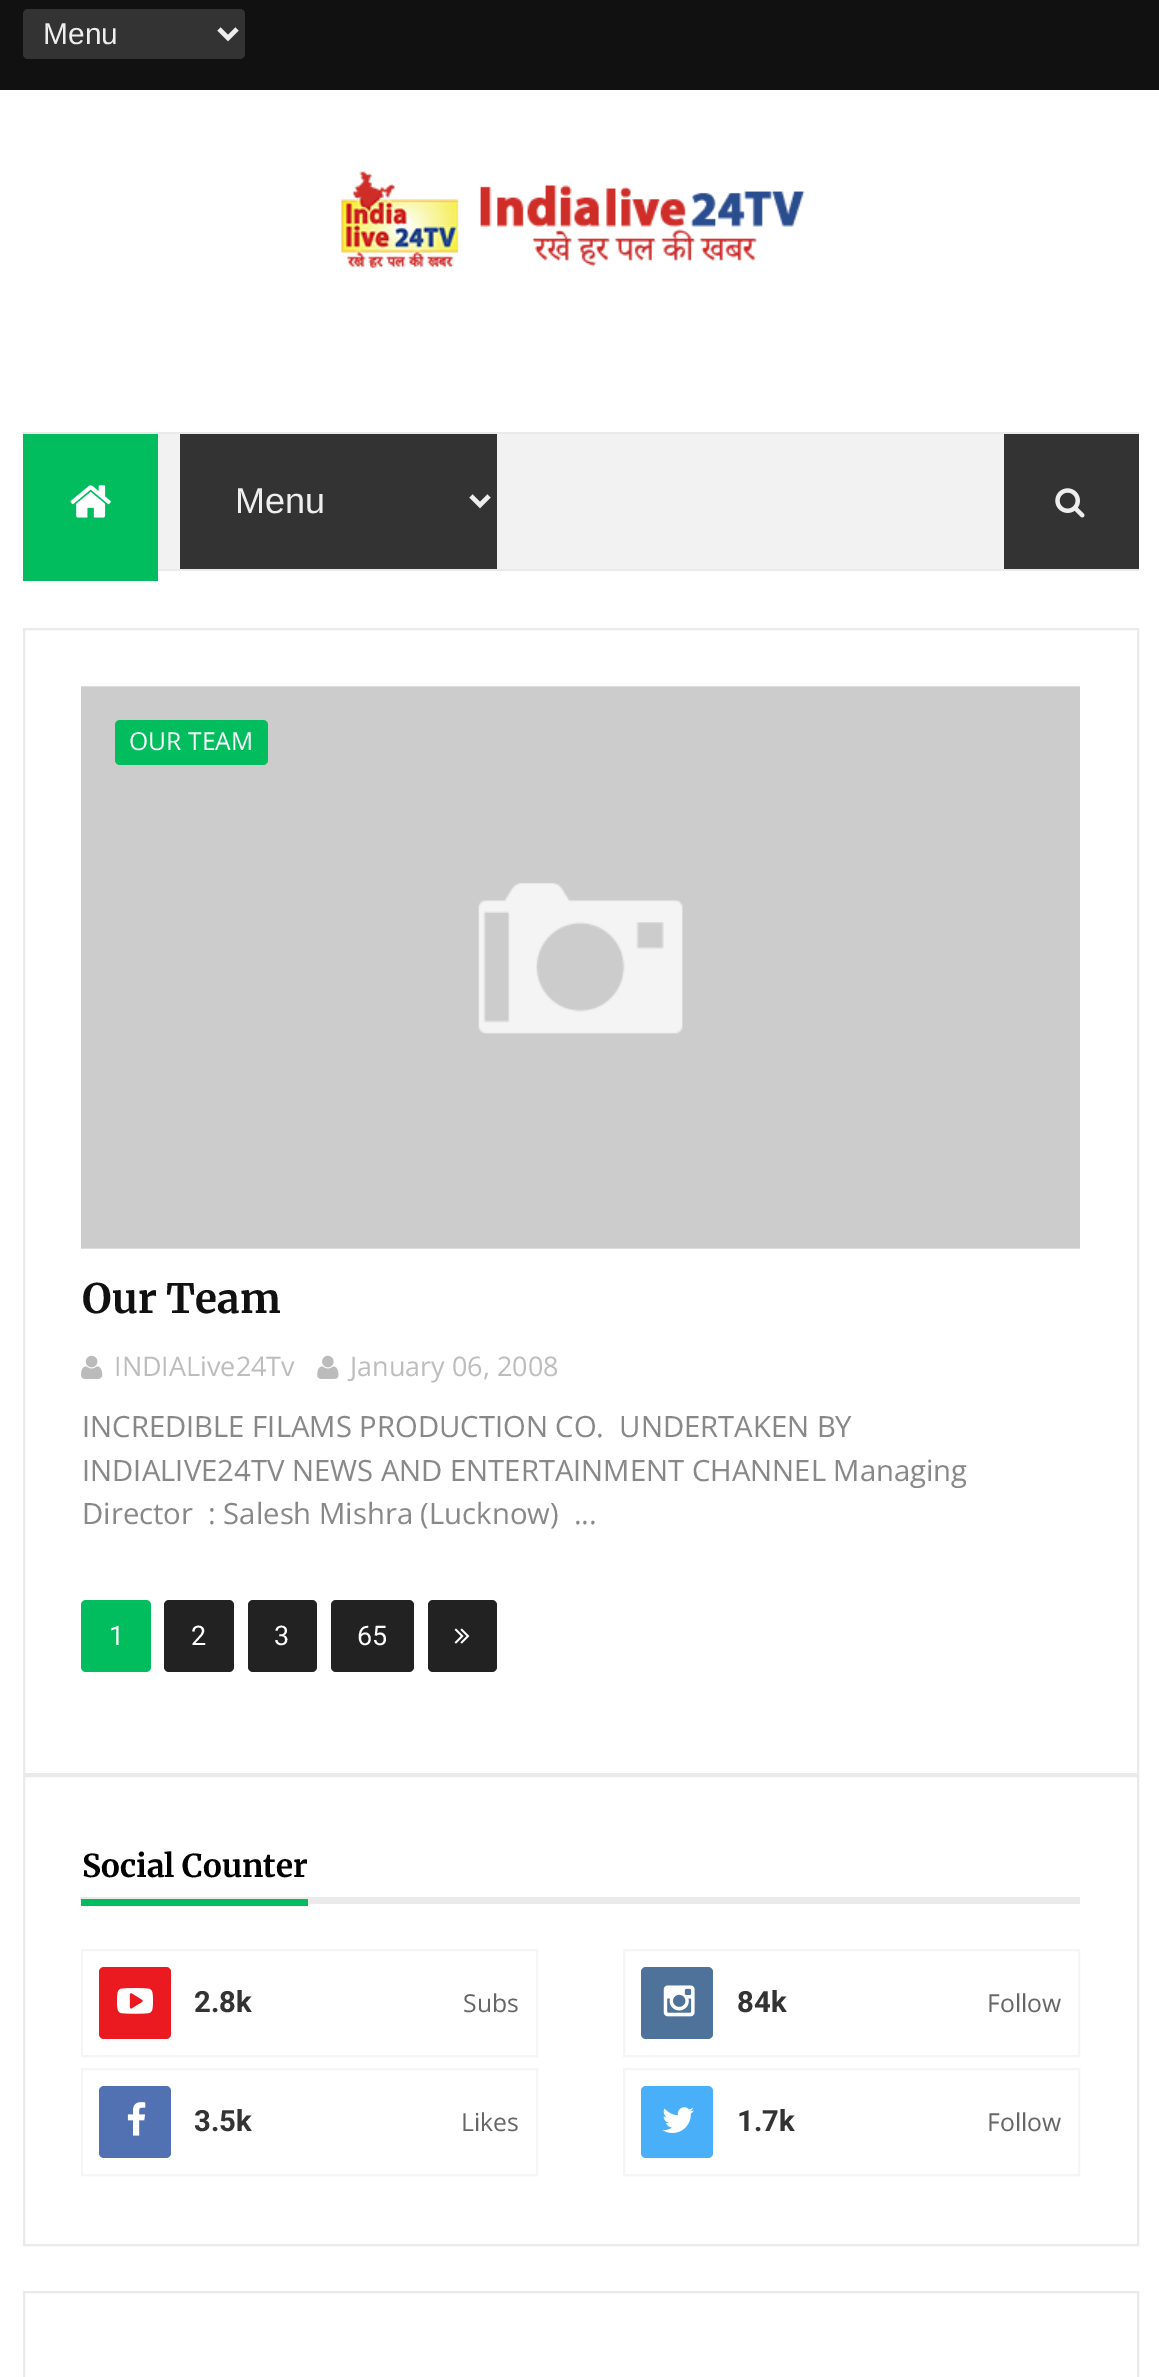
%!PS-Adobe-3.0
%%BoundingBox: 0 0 1159 2377
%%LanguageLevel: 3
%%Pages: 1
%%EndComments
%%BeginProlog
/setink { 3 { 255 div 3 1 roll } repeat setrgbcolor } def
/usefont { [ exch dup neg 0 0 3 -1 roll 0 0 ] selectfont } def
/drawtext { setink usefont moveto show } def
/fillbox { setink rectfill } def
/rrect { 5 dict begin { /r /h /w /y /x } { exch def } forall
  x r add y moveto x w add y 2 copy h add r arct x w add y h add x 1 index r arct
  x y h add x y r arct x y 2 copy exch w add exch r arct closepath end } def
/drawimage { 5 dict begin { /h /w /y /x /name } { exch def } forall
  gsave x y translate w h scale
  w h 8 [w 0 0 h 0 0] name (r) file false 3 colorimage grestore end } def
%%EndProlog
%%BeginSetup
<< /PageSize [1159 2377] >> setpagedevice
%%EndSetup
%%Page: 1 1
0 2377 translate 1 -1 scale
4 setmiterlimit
0 0 1159 2377 255 255 255 fillbox
81 686 999 563 244 244 244 fillbox
0 0 1159 90 17 17 17 fillbox
51 51 51 setink
23 9 222 50 5 rrect fill
238 238 238 setink
4.5 setlinewidth
219 29 moveto 228 38 lineto 237 29 lineto stroke
(Menu) 43 44 /LiberationSans-Regular 30 238 238 238 drawtext
(assets/img1.rgb) 341 171 464 97 drawimage
23 432 1116 2 234 234 234 fillbox
158 569 981 2 234 234 234 fillbox
158 434 846 135 242 242 242 fillbox
23 434 135 147 1 189 93 fillbox
(assets/img2.rgb) 70 485 41 33 drawimage
180 434 317 135 51 51 51 fillbox
238 238 238 setink
471 496 moveto 480 505 lineto 489 496 lineto stroke
(Menu) 235 513 /LiberationSans-Regular 36 238 238 238 drawtext
1004 434 135 135 51 51 51 fillbox
(assets/img3.rgb) 1055 488 30 30 drawimage
234 234 234 setink
2 setlinewidth
24 629 1114 1145 rectstroke
(assets/img4.rgb) 81 686 999 563 drawimage
1 189 93 setink
115 720 153 45 5 rrect fill
(OUR TEAM) 129 750 /OpenSans-Regular 24.75 255 255 255 drawtext
(Our Team) 82 1313 /Merriweather-Light 40.5 17 17 17 drawtext
(assets/img5.rgb) 81 1355 22 24 drawimage
(INDIALive24Tv) 114 1376 /OpenSans-Regular 27 189 189 189 drawtext
(assets/img6.rgb) 317 1355 22 24 drawimage
(January 06, 2008) 350 1376 /OpenSans-Regular 27 189 189 189 drawtext
(INCREDIBLE FILAMS PRODUCTION CO.  UNDERTAKEN BY) 82 1437 /OpenSans-Regular 29.25 136 136 136 drawtext
(INDIALIVE24TV NEWS AND ENTERTAINMENT CHANNEL Managing) 82 1481 /OpenSans-Regular 29.25 136 136 136 drawtext
(Director  : Salesh Mishra \(Lucknow\)  ...) 82 1524 /OpenSans-Regular 29.25 136 136 136 drawtext
1 189 93 setink
81 1600 70 72 5 rrect fill
(1) 109 1645 /Roboto-Regular 27 255 255 255 drawtext
34 34 34 setink
164 1600 70 72 5 rrect fill
(2) 191 1645 /Roboto-Regular 27 255 255 255 drawtext
34 34 34 setink
248 1600 69 72 5 rrect fill
(3) 274 1645 /Roboto-Regular 27 255 255 255 drawtext
34 34 34 setink
331 1600 83 72 5 rrect fill
(65) 357 1645 /Roboto-Regular 27 255 255 255 drawtext
34 34 34 setink
428 1600 69 72 5 rrect fill
(assets/img7.rgb) 454 1628 16 16 drawimage
234 234 234 setink
24 1776 1114 469 rectstroke
81 1897 999 7 234 234 234 fillbox
81 1899 227 7 1 189 93 fillbox
(Social Counter) 82 1877 /Merriweather-Light 31.5 0 0 0 drawtext
245 245 245 setink
82 1950 455 106 rectstroke
235 26 33 setink
99 1967 72 72 5 rrect fill
(assets/img8.rgb) 117 1988 36 26 drawimage
(2.8k) 194 2012 /Roboto-Bold 29.25 51 51 51 drawtext
(Subs) 463 2012 /OpenSans-Regular 24.75 102 102 102 drawtext
245 245 245 setink
624 1950 455 106 rectstroke
78 114 154 setink
641 1967 72 72 5 rrect fill
(assets/img9.rgb) 663 1985 32 32 drawimage
(84k) 737 2012 /Roboto-Bold 29.25 51 51 51 drawtext
(Follow) 987 2012 /OpenSans-Regular 24.75 102 102 102 drawtext
245 245 245 setink
82 2069 455 106 rectstroke
82 113 179 setink
99 2086 72 72 5 rrect fill
(assets/img10.rgb) 127 2102 19 34 drawimage
(3.5k) 194 2131 /Roboto-Bold 29.25 51 51 51 drawtext
(Likes) 461 2131 /OpenSans-Regular 24.75 102 102 102 drawtext
245 245 245 setink
624 2069 455 106 rectstroke
73 175 248 setink
641 2086 72 72 5 rrect fill
(assets/img11.rgb) 662 2107 32 26 drawimage
(1.7k) 737 2131 /Roboto-Bold 29.25 51 51 51 drawtext
(Follow) 987 2131 /OpenSans-Regular 24.75 102 102 102 drawtext
234 234 234 setink
24 2292 1114 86 rectstroke
showpage
%%EOF
